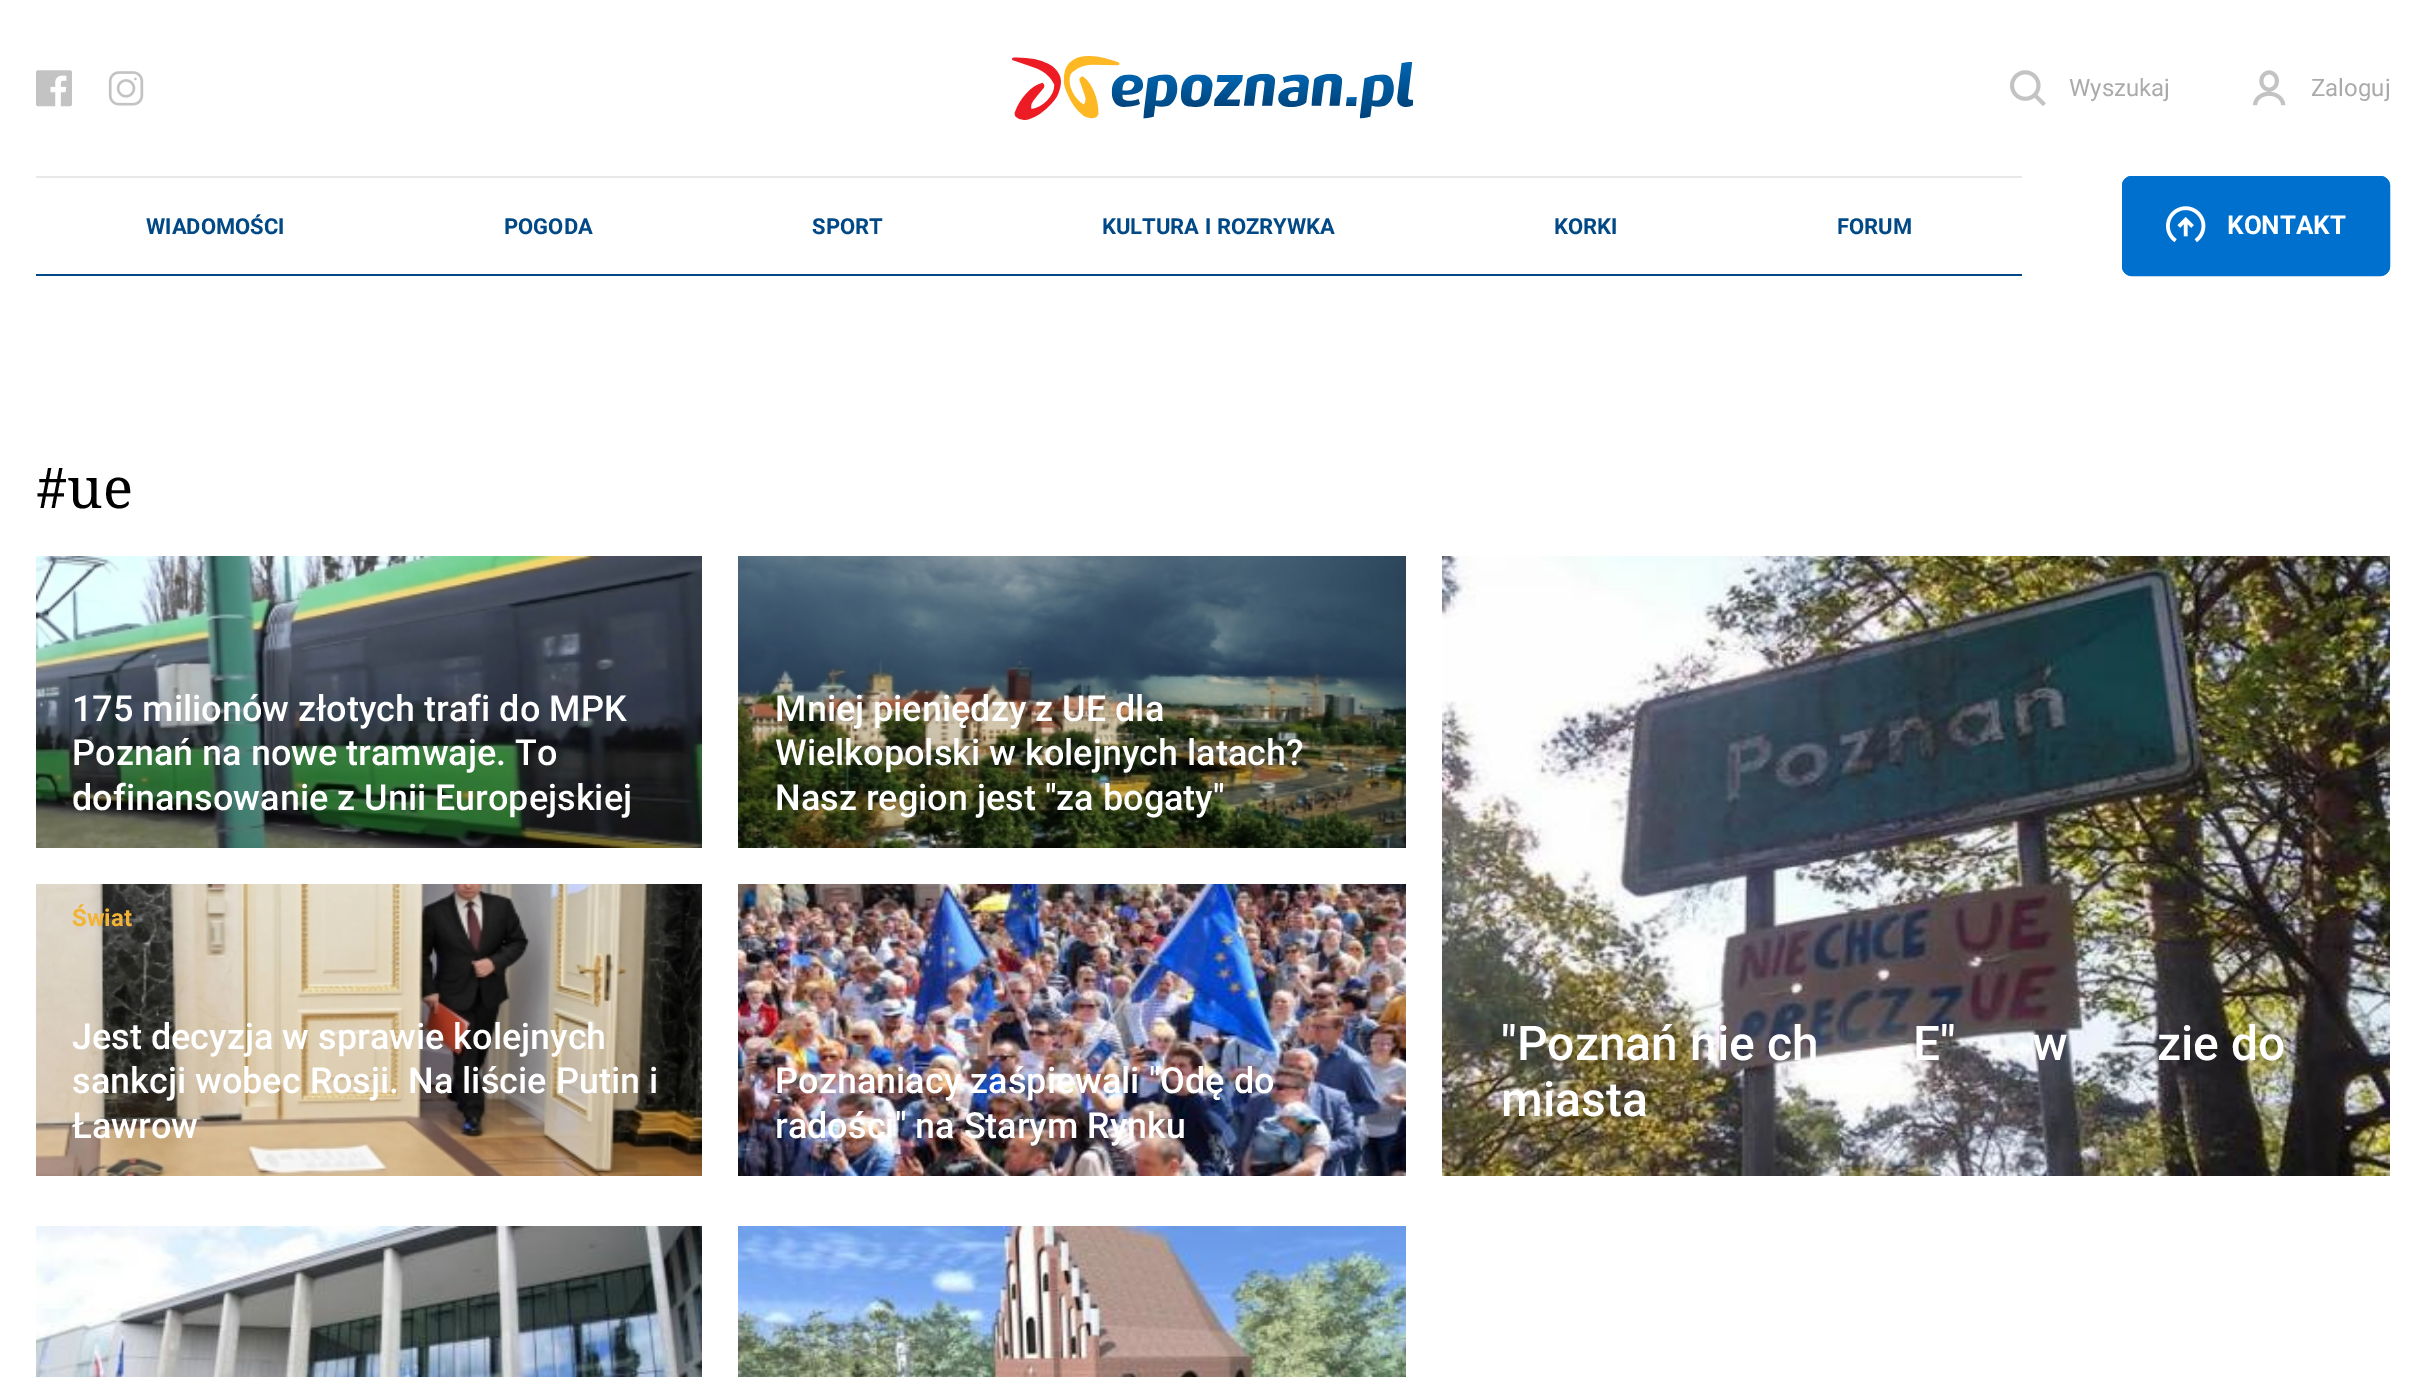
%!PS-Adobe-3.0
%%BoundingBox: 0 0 2425 1377
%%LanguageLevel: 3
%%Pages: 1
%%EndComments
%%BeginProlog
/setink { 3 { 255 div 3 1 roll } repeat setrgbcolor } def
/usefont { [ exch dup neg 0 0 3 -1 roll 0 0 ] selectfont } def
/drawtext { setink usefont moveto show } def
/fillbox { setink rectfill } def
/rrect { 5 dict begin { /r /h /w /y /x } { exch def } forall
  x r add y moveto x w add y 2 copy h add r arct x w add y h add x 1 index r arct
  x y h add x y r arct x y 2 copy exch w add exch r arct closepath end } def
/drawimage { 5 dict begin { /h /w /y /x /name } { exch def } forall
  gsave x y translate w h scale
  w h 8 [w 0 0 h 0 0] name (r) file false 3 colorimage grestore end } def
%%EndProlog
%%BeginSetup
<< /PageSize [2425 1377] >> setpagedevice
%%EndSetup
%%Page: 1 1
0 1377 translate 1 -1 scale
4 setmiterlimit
0 0 2425 1377 255 255 255 fillbox
(assets/img1.rgb) 36 70 36 37 drawimage
(assets/img2.rgb) 108 71 36 35 drawimage
(assets/img3.rgb) 1012 56 401 64 drawimage
(assets/img4.rgb) 2010 70 36 36 drawimage
(Wyszukaj) 2069 96 /Roboto-Regular 24 170 170 170 drawtext
(assets/img5.rgb) 2253 70 33 36 drawimage
(Zaloguj) 2311 96 /Roboto-Regular 24 170 170 170 drawtext
36 176 1986 2 232 232 232 fillbox
36 274 1986 2 0 73 134 fillbox
(WIADOMOŚCI) 146 234 /Roboto-Bold 22 0 73 134 drawtext
(POGODA) 504 234 /Roboto-Bold 22 0 73 134 drawtext
(SPORT) 812 234 /Roboto-Bold 22 0 73 134 drawtext
(KULTURA I ROZRYWKA) 1102 234 /Roboto-Bold 22 0 73 134 drawtext
(KORKI) 1554 234 /Roboto-Bold 22 0 73 134 drawtext
(FORUM) 1837 234 /Roboto-Bold 22 0 73 134 drawtext
0 112 206 setink
2122 176 268 100 10 rrect fill
(assets/img6.rgb) 2166 206 40 37 drawimage
4 setlinewidth
2124 178 264 96 8 rrect stroke
(KONTAKT) 2227 234 /Roboto-Bold 26 255 255 255 drawtext
(#ue) 36 508 /NotoSerif-Regular 56 0 0 0 drawtext
(assets/img7.rgb) 36 556 666 292 drawimage
(175 milionów złotych trafi do MPK) 72 721 /Roboto-Medium 36 255 255 255 drawtext
(Poznań na nowe tramwaje. To) 72 765 /Roboto-Medium 36 255 255 255 drawtext
(dofinansowanie z Unii Europejskiej) 72 810 /Roboto-Medium 36 255 255 255 drawtext
(assets/img8.rgb) 36 884 666 292 drawimage
(Świat) 72 926 /Roboto-Bold 24 243 179 53 drawtext
(Jest decyzja w sprawie kolejnych) 72 1049 /Roboto-Medium 36 255 255 255 drawtext
(sankcji wobec Rosji. Na liście Putin i) 72 1093 /Roboto-Medium 36 255 255 255 drawtext
(Ławrow) 72 1138 /Roboto-Medium 36 255 255 255 drawtext
(assets/img9.rgb) 738 556 668 292 drawimage
(Mniej pieniędzy z UE dla) 775 721 /Roboto-Medium 36 255 255 255 drawtext
(Wielkopolski w kolejnych latach?) 775 765 /Roboto-Medium 36 255 255 255 drawtext
(Nasz region jest "za bogaty") 775 810 /Roboto-Medium 36 255 255 255 drawtext
(assets/img10.rgb) 738 884 668 292 drawimage
(Poznaniacy zaśpiewali "Odę do) 775 1093 /Roboto-Medium 36 255 255 255 drawtext
(radości" na Starym Rynku) 775 1138 /Roboto-Medium 36 255 255 255 drawtext
(assets/img11.rgb) 1442 556 948 620 drawimage
("Poznań nie ch) 1501 1060 /Roboto-Medium 48 255 255 255 drawtext
(E") 1913 1060 /Roboto-Medium 48 255 255 255 drawtext
(w) 2032 1060 /Roboto-Medium 48 255 255 255 drawtext
(zie do) 2157 1060 /Roboto-Medium 48 255 255 255 drawtext
(miasta) 1501 1116 /Roboto-Medium 48 255 255 255 drawtext
(assets/img12.rgb) 36 1226 666 151 drawimage
(assets/img13.rgb) 738 1226 668 151 drawimage
showpage
%%EOF
